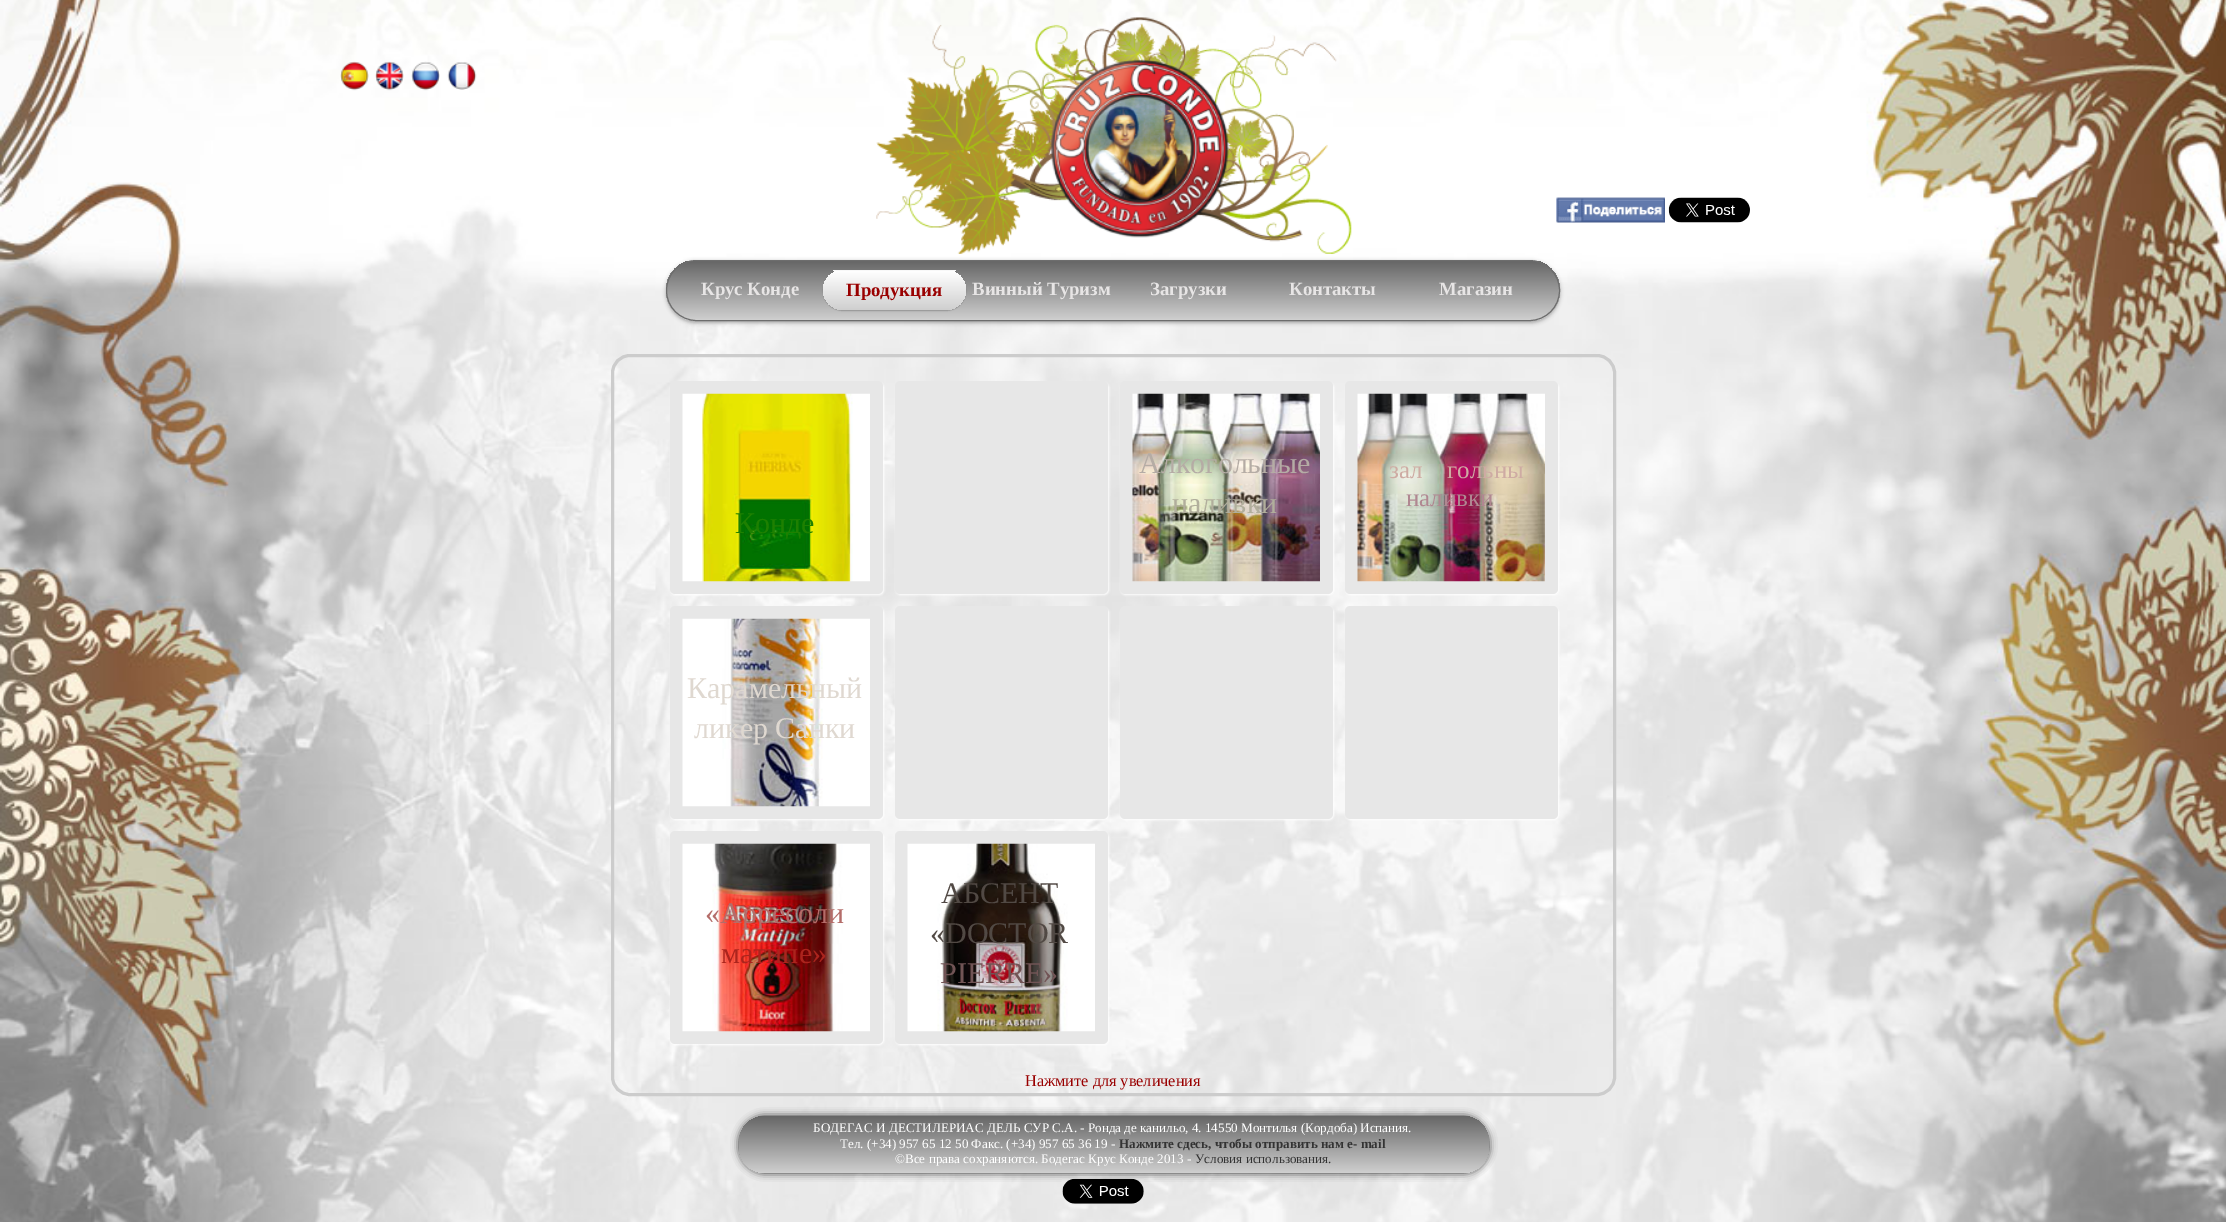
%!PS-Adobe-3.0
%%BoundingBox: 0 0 2226 1222
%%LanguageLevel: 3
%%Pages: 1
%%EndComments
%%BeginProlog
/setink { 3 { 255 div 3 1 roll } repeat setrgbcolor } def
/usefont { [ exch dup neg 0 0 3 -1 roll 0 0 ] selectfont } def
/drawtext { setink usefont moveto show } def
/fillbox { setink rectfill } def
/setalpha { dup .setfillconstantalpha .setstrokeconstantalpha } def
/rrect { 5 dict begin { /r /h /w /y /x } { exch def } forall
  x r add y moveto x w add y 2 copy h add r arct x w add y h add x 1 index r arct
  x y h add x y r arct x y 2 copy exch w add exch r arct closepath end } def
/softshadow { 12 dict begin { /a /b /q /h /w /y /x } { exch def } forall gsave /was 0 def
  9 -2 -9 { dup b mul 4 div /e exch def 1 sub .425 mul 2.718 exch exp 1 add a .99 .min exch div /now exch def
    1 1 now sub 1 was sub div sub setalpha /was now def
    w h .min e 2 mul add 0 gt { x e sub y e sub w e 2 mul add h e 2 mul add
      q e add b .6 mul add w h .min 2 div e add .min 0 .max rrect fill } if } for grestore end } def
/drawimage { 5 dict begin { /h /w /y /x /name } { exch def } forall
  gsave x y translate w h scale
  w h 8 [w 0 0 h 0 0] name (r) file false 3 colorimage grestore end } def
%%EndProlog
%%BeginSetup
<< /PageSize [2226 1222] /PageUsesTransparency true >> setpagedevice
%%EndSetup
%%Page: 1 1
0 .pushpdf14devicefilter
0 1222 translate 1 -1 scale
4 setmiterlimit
0 0 2226 1222 255 255 255 fillbox
(assets/img1.rgb) 0 0 2226 1222 drawimage
(assets/img2.rgb) 340 61 29 30 drawimage
(assets/img3.rgb) 375 61 29 30 drawimage
(assets/img4.rgb) 411 61 29 30 drawimage
(assets/img5.rgb) 447 62 30 28 drawimage
(assets/img6.rgb) 876 17 476 237 drawimage
(assets/img7.rgb) 1556 197 109 26 drawimage
(assets/img8.rgb) 1668 197 82 26 drawimage
0 0 0 setink
666 261 894 62 31 2 0.3 softshadow
gsave
666 260 894 61 30.5 rrect clip newpath
gsave 666 261 moveto 1560 261 lineto 1560 320 lineto 666 320 lineto closepath clip newpath
<< /ShadingType 2 /ColorSpace /DeviceRGB /Coords [1113 261 1113 320] /Extend [true true] /Function << /FunctionType 2 /Domain [0 1] /C0 [0.4 0.4 0.4] /C1 [0.812 0.812 0.812] /N 1 >> >> shfill grestore
grestore
109 109 109 setink
666.5 260.5 893 60 30 rrect stroke
(Крус Конде) 701 295 /LiberationSerif-Bold 18.75 231 229 229 drawtext
0 0 0 setink
823 271 143 40 20 0.5 0.2 softshadow
gsave
823 270 143 40 20 rrect clip newpath
gsave 823 271 moveto 966 271 lineto 966 290 lineto 966 301 957 310 946 310 curveto 843 310 lineto 832 310 823 301 823 290 curveto closepath clip newpath
<< /ShadingType 2 /ColorSpace /DeviceRGB /Coords [894 271 894 310] /Extend [true true] /Function << /FunctionType 2 /Domain [0 1] /C0 [1 1 1] /C1 [0.812 0.812 0.812] /N 1 >> >> shfill grestore
grestore
833 270 123 1 248 248 248 fillbox
(Продукция) 846 296 /LiberationSerif-Bold 18.75 153 0 0 drawtext
(Винный Туризм) 972 295 /LiberationSerif-Bold 18.75 231 229 229 drawtext
(Загрузки) 1150 295 /LiberationSerif-Bold 18.75 231 229 229 drawtext
(Контакты) 1289 295 /LiberationSerif-Bold 18.75 231 229 229 drawtext
(Магазин) 1439 295 /LiberationSerif-Bold 18.75 231 229 229 drawtext
204 204 204 setink
3 setlinewidth
612.5 355.5 1002 739 17.5 rrect stroke
255 255 255 setink
896 383 213 212 5 1 1 softshadow
231 231 231 setink
895 381 213 213 5 rrect fill
255 255 255 setink
1121 383 213 212 5 1 1 softshadow
231 231 231 setink
1120 381 213 213 5 rrect fill
(assets/img9.rgb) 1132 393 188 189 drawimage
(Алкогольные) 1139 473 /LiberationSerif-Regular 30 181 172 165 drawtext
(наливки) 1172 513 /LiberationSerif-Regular 30 177 174 156 drawtext
255 255 255 setink
1346 383 213 212 5 1 1 softshadow
231 231 231 setink
1345 381 213 213 5 rrect fill
(assets/img10.rgb) 1357 393 188 189 drawimage
(зал) 1389 478 /LiberationSerif-Regular 25 206 171 163 drawtext
(гольны) 1447 478 /LiberationSerif-Regular 25 206 171 163 drawtext
(наливки) 1406 506 /LiberationSerif-Regular 25 176 135 145 drawtext
255 255 255 setink
671 383 213 212 5 1 1 softshadow
231 231 231 setink
670 381 213 213 5 rrect fill
(assets/img11.rgb) 682 393 188 189 drawimage
(Конде) 735 533 /LiberationSerif-Regular 30 30 128 1 drawtext
255 255 255 setink
671 608 213 212 5 1 1 softshadow
231 231 231 setink
670 606 213 213 5 rrect fill
(assets/img12.rgb) 682 618 188 189 drawimage
(Карамельный) 687 698 /LiberationSerif-Regular 30 223 216 208 drawtext
(ликер Санки) 694 738 /LiberationSerif-Regular 30 223 216 208 drawtext
255 255 255 setink
896 608 213 212 5 1 1 softshadow
231 231 231 setink
895 606 213 213 5 rrect fill
255 255 255 setink
1121 608 213 212 5 1 1 softshadow
231 231 231 setink
1120 606 213 213 5 rrect fill
255 255 255 setink
1346 608 213 212 5 1 1 softshadow
231 231 231 setink
1345 606 213 213 5 rrect fill
255 255 255 setink
671 833 213 212 5 1 1 softshadow
231 231 231 setink
670 831 213 213 5 rrect fill
(assets/img13.rgb) 682 843 188 189 drawimage
(«Арресоли) 705 923 /LiberationSerif-Regular 30 180 108 105 drawtext
(матипе») 721 963 /LiberationSerif-Regular 30 172 36 29 drawtext
255 255 255 setink
896 833 213 212 5 1 1 softshadow
231 231 231 setink
895 831 213 213 5 rrect fill
(assets/img14.rgb) 907 843 188 189 drawimage
(АБСЕНТ) 941 903 /LiberationSerif-Regular 30 81 73 68 drawtext
(«DOCTOR) 930 943 /LiberationSerif-Regular 30 81 73 68 drawtext
(PIERRE») 940 983 /LiberationSerif-Regular 30 113 84 85 drawtext
(Нажмите для увеличения) 1025 1086 /LiberationSerif-Regular 16.25 153 0 0 drawtext
0 0 0 setink
739 1116 750 57 26 4 0.8 softshadow
gsave 739 1116 750 57 26 rrect clip newpath
<< /ShadingType 2 /ColorSpace /DeviceRGB /Coords [1114 1116 1114 1173] /Extend [true true] /Function << /FunctionType 2 /Domain [0 1] /C0 [0.4 0.4 0.4] /C1 [0.812 0.812 0.812] /N 1 >> >> shfill grestore
(БОДЕГАС И ДЕСТИЛЕРИАС ДЕЛЬ СУР С.А. - Ронда де канильо, 4. 14550 Монтилья \(Кордоба\) Испания.) 813 1132 /LiberationSerif-Regular 13.1 255 255 255 drawtext
(Тел. \(+34\) 957 65 12 50 Факс. \(+34\) 957 65 36 19 -) 840 1148 /LiberationSerif-Regular 13.1 255 255 255 drawtext
(Нажмите сдесь, чтобы отправить нам e- mail) 1119 1148 /LiberationSerif-Bold 13.1 51 51 51 drawtext
(©Все права сохраняются. Бодегас Крус Конде 2013 -) 895 1163 /LiberationSerif-Regular 13.1 255 255 255 drawtext
(Условия использования.) 1195 1163 /LiberationSerif-Regular 13.1 51 51 51 drawtext
(assets/img15.rgb) 1062 1178 82 26 drawimage
.poppdf14devicefilter showpage
%%EOF
